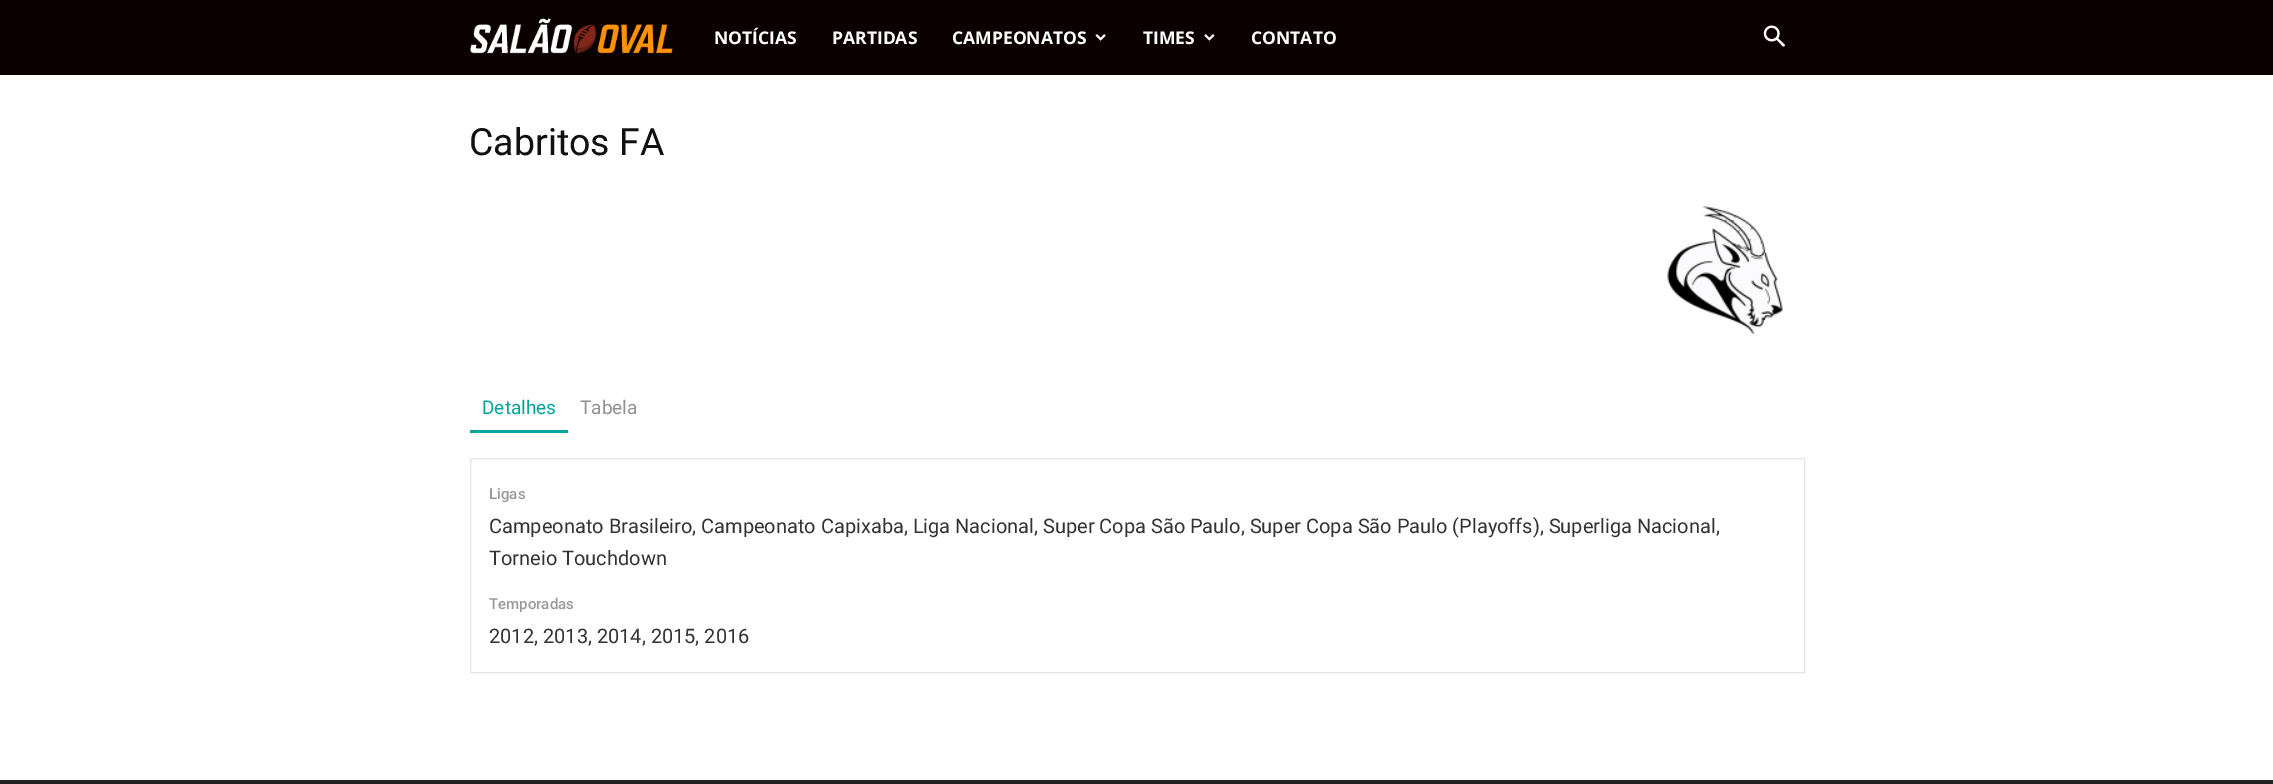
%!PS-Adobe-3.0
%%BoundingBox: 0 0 2273 784
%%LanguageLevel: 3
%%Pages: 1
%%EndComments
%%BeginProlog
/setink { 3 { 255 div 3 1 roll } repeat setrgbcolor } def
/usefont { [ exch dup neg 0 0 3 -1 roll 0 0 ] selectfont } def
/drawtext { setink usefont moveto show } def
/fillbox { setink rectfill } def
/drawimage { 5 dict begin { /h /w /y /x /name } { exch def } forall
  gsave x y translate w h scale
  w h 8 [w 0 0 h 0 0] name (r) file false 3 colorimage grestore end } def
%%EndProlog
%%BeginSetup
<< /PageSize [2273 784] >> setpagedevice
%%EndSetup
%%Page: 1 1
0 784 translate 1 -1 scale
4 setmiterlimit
0 0 2273 784 255 255 255 fillbox
0 0 2273 75 10 0 0 fillbox
(assets/img1.rgb) 470 18 203 36 drawimage
(NOTÍCIAS) 714 44 /OpenSans-Bold 17.5 255 255 255 drawtext
(PARTIDAS) 832 44 /OpenSans-Bold 17.5 255 255 255 drawtext
(CAMPEONATOS) 952 44 /OpenSans-Bold 17.5 255 255 255 drawtext
(assets/img2.rgb) 1095 34 11 7 drawimage
(TIMES) 1143 44 /OpenSans-Bold 17.5 255 255 255 drawtext
(assets/img3.rgb) 1204 34 11 7 drawimage
(CONTATO) 1251 44 /OpenSans-Bold 17.5 255 255 255 drawtext
(assets/img4.rgb) 1763 25 22 22 drawimage
(Cabritos FA) 469 155 /Roboto-Regular 37.5 17 17 17 drawtext
(assets/img5.rgb) 1667 206 116 129 drawimage
470 430 98 3 0 166 156 fillbox
(Detalhes) 482 414 /Roboto-Regular 19 0 166 156 drawtext
(Tabela) 580 414 /Roboto-Regular 19 145 145 145 drawtext
229 229 229 setink
470.5 458.5 1334 214 rectstroke
(Ligas) 489 499 /Roboto-Medium 15 153 153 153 drawtext
(Campeonato Brasileiro, Campeonato Capixaba, Liga Nacional, Super Copa São Paulo, Super Copa São Paulo \(Playoffs\), Superliga Nacional,) 489 533 /Roboto-Regular 20 51 51 51 drawtext
(Torneio Touchdown) 489 565 /Roboto-Regular 20 51 51 51 drawtext
(Temporadas) 489 609 /Roboto-Medium 15 153 153 153 drawtext
(2012, 2013, 2014, 2015, 2016) 489 643 /Roboto-Regular 20 51 51 51 drawtext
0 780 2273 4 34 34 34 fillbox
showpage
%%EOF
